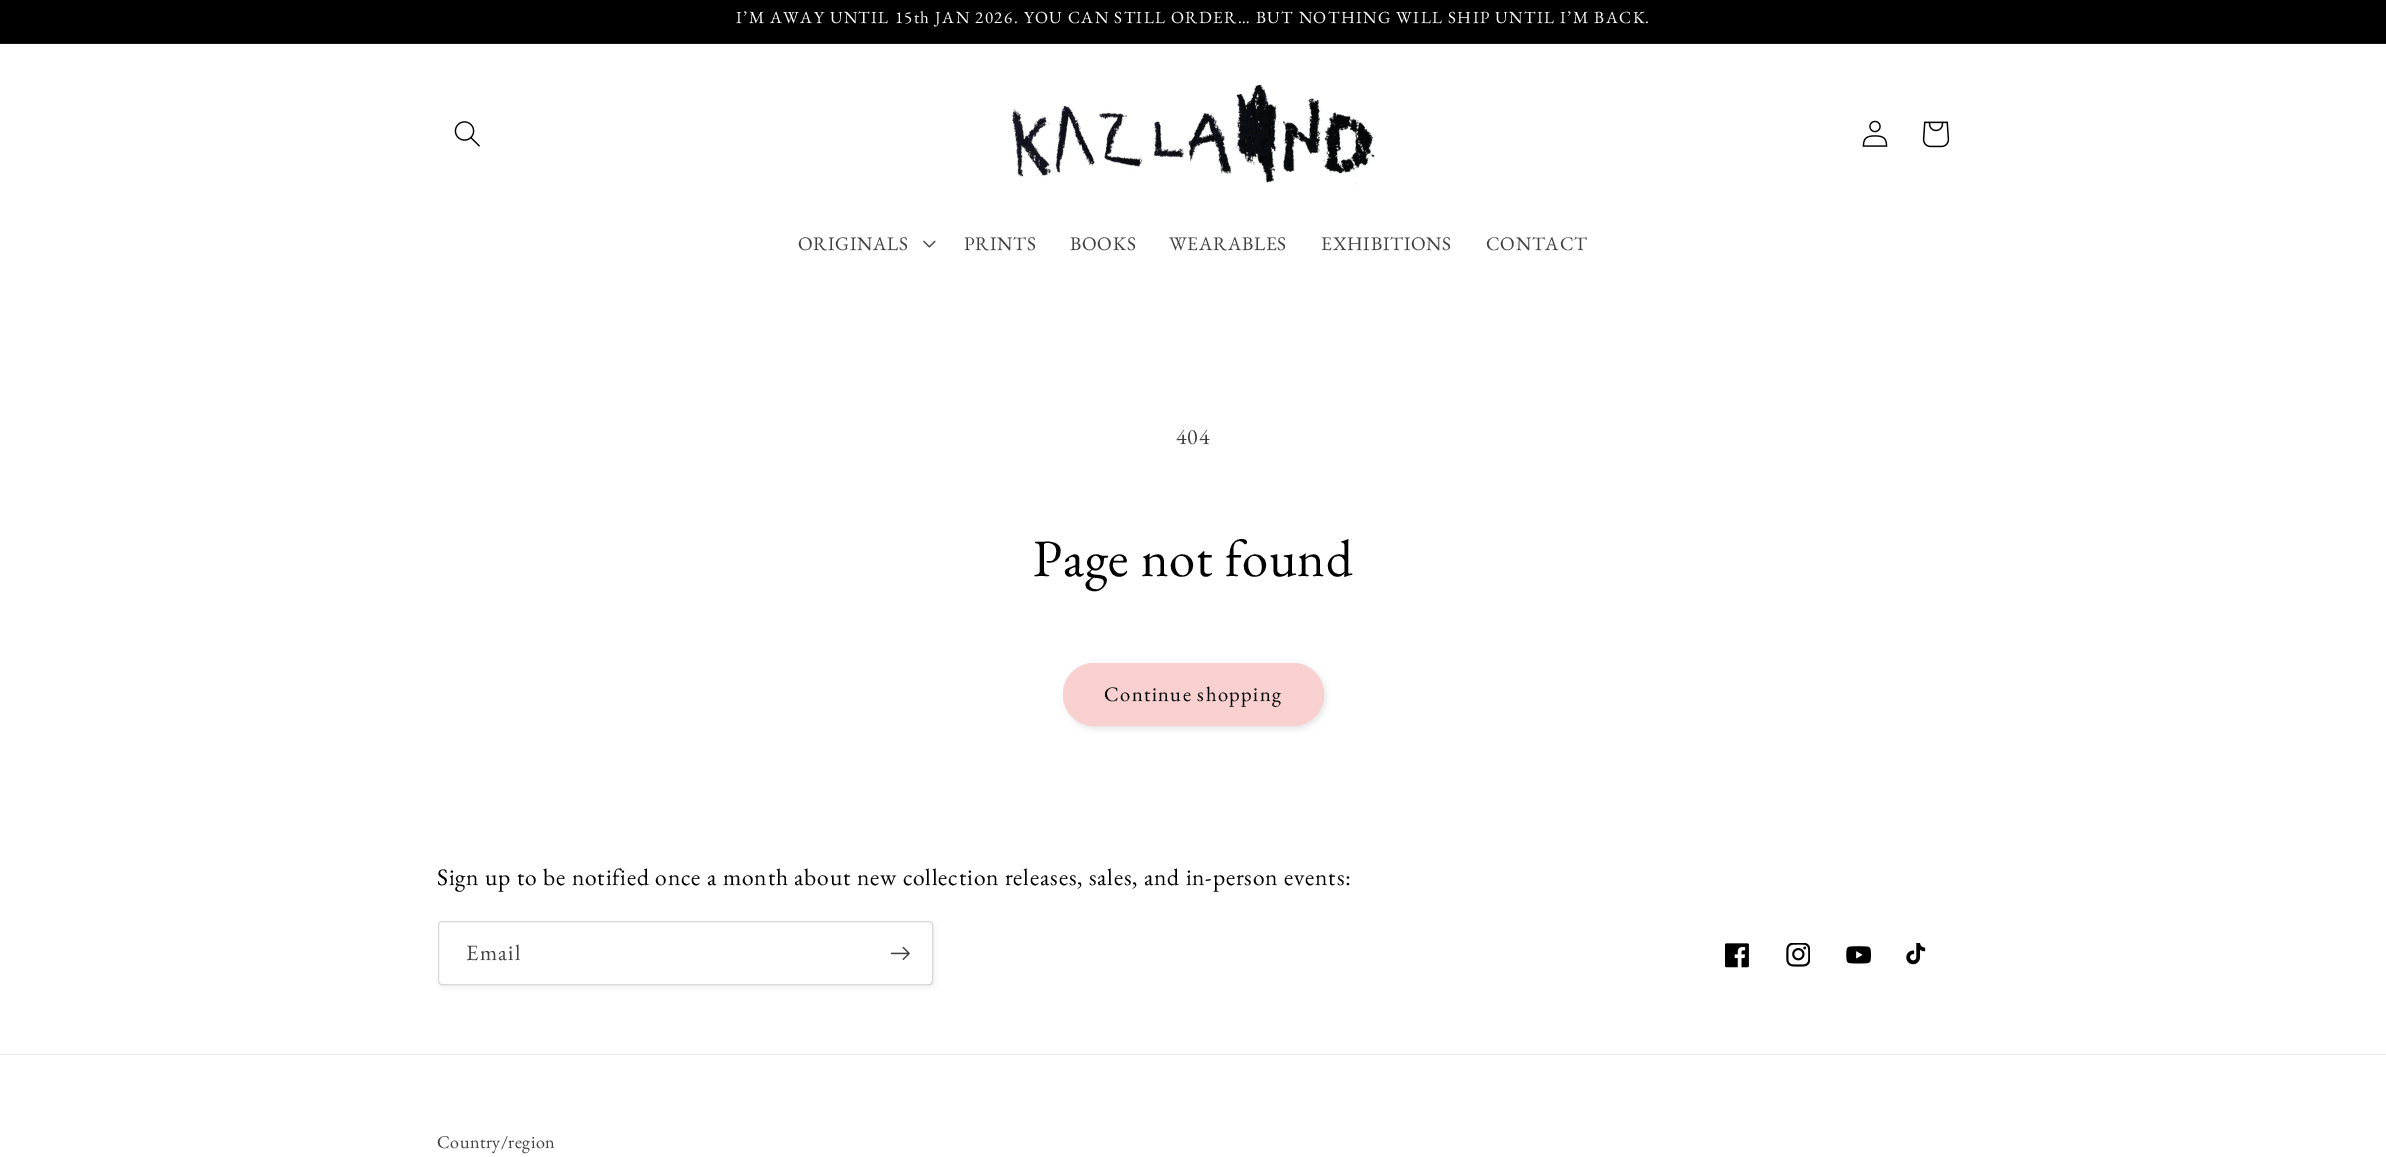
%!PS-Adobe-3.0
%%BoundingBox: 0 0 2386 1157
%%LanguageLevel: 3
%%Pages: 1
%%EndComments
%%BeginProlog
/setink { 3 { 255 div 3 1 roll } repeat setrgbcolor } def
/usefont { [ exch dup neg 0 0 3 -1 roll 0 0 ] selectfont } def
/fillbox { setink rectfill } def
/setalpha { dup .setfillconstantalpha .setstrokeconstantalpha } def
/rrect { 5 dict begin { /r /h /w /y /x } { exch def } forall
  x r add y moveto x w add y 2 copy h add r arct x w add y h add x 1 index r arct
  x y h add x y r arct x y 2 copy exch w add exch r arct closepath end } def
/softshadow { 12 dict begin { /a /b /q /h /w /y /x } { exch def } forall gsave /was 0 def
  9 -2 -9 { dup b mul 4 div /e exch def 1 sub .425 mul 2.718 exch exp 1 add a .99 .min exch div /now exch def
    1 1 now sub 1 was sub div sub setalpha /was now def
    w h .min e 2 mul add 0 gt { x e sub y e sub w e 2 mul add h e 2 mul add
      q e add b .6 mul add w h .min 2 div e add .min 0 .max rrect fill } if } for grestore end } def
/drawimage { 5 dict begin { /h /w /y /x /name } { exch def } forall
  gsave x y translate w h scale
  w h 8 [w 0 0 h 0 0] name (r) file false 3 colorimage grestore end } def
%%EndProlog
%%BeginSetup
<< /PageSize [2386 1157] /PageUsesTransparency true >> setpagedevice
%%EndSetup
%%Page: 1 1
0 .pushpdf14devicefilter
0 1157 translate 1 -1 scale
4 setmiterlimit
0 0 2386 1157 255 255 255 fillbox
0 0 2386 43 0 0 0 fillbox
0 43 2386 1 20 20 20 fillbox
/EBGaramond-Regular 17.05 usefont
255 255 255 setink
736 23 moveto 1.38 0 (I’M AWAY UNTIL 15th JAN 2026. YOU CAN STILL ORDER… BUT NOTHING WILL SHIP UNTIL I’M BACK.) ashow
(assets/img1.rgb) 454 121 26 26 drawimage
(assets/img2.rgb) 1012 84 363 101 drawimage
(assets/img3.rgb) 1862 120 26 27 drawimage
(assets/img4.rgb) 1922 121 28 27 drawimage
/EBGaramond-Regular 19.25 usefont
64 64 64 setink
798 250 moveto 0.75 0 (ORIGINALS) ashow
(assets/img5.rgb) 923 240 13 8 drawimage
964 250 moveto 0.75 0 (PRINTS) ashow
1070 250 moveto 0.75 0 (BOOKS) ashow
1169 250 moveto 0.75 0 (WEARABLES) ashow
1321 250 moveto 0.75 0 (EXHIBITIONS) ashow
1486 250 moveto 0.75 0 (CONTACT) ashow
/EBGaramond-Regular 22 usefont
1176 444 moveto 0.75 0 (404) ashow
/EBGaramond-Regular 52.5 usefont
0 0 0 setink
1033 576 moveto 0.8 0 (Page not found) ashow
1065 665 261 64 32 3 0.1 softshadow
249 208 208 setink
1063 663 261 63 31.5 rrect fill
1063.5 663.5 260 62 31 rrect stroke
/EBGaramond-Regular 20.6 usefont
0 0 0 setink
1104 701 moveto 1.38 0 (Continue shopping) ashow
/EBGaramond-Regular 23.6 usefont
437 885 moveto 0.8 0 (Sign up to be notified once a month about new collection releases, sales, and in-person events:) ashow
gsave
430 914 moveto 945 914 lineto 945 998 lineto 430 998 lineto closepath 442 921 moveto 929 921 lineto 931 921 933 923 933 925 curveto 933 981 lineto 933 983 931 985 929 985 curveto 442 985 lineto 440 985 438 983 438 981 curveto 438 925 lineto 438 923 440 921 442 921 curveto closepath eoclip newpath
440 924 495 64 4 3 0.05 softshadow
grestore
0.15 setalpha
438.5 921.5 494 63 3.5 rrect stroke
/EBGaramond-Regular 22 usefont
1 setalpha
64 64 64 setink
466 960 moveto 1.38 0 (Email) ashow
(assets/img6.rgb) 890 946 20 14 drawimage
(assets/img7.rgb) 1725 943 24 25 drawimage
(assets/img8.rgb) 1786 943 24 24 drawimage
(assets/img9.rgb) 1846 946 25 18 drawimage
(assets/img10.rgb) 1906 943 20 22 drawimage
0 1054 2386 1 235 235 235 fillbox
/EBGaramond-Regular 18 usefont
64 64 64 setink
437 1148 moveto 0.5 0 (Country/region) ashow
.poppdf14devicefilter showpage
%%EOF
